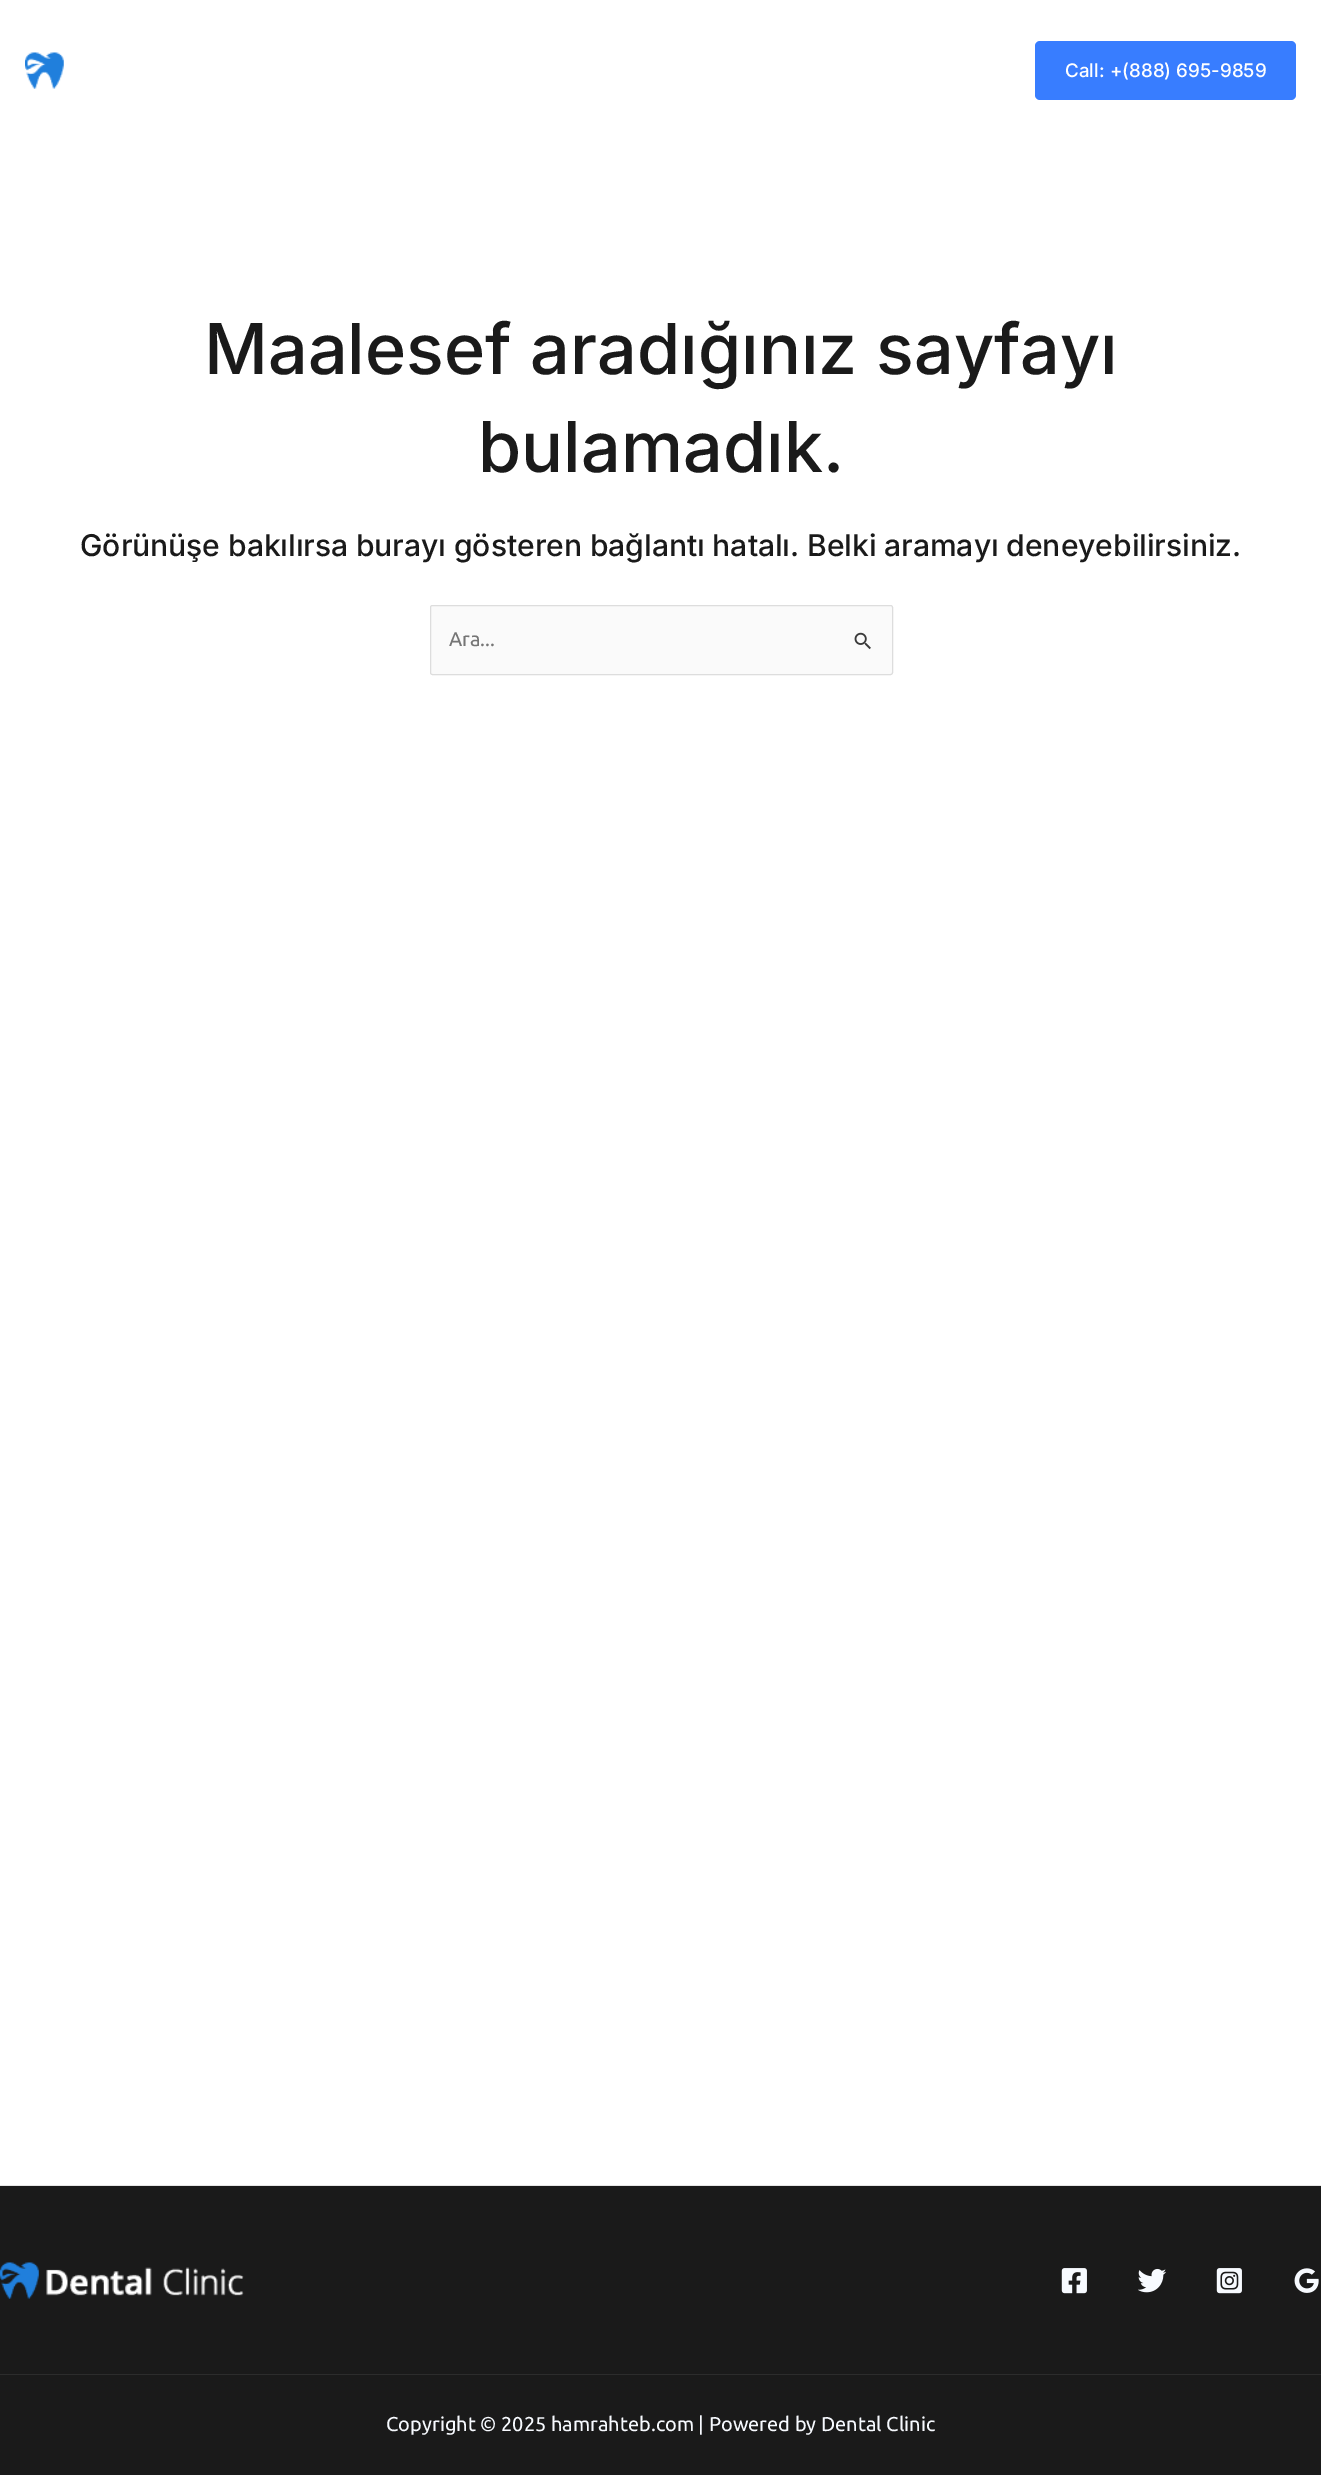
%!PS-Adobe-3.0
%%BoundingBox: 0 0 1321 2475
%%LanguageLevel: 3
%%Pages: 1
%%EndComments
%%BeginProlog
/setink { 3 { 255 div 3 1 roll } repeat setrgbcolor } def
/usefont { [ exch dup neg 0 0 3 -1 roll 0 0 ] selectfont } def
/drawtext { setink usefont moveto show } def
/fillbox { setink rectfill } def
/rrect { 5 dict begin { /r /h /w /y /x } { exch def } forall
  x r add y moveto x w add y 2 copy h add r arct x w add y h add x 1 index r arct
  x y h add x y r arct x y 2 copy exch w add exch r arct closepath end } def
/drawimage { 5 dict begin { /h /w /y /x /name } { exch def } forall
  gsave x y translate w h scale
  w h 8 [w 0 0 h 0 0] name (r) file false 3 colorimage grestore end } def
%%EndProlog
%%BeginSetup
<< /PageSize [1321 2475] >> setpagedevice
%%EndSetup
%%Page: 1 1
0 2475 translate 1 -1 scale
4 setmiterlimit
0 0 1321 2475 255 255 255 fillbox
(assets/img1.rgb) 25 52 39 37 drawimage
56 125 255 setink
1035 41 261 59 5 rrect fill
(Call: +\(888\) 695-9859) 1065 77 /Inter-Medium 18.75 255 255 255 drawtext
(Maalesef aradığınız sayfayı) 204 374 /Inter-Medium 70 26 26 26 drawtext
(bulamadık.) 478 472 /Inter-Medium 70 26 26 26 drawtext
(Görünüşe bakılırsa burayı gösteren bağlantı hatalı. Belki aramayı deneyebilirsiniz.) 80 556 /Inter-Medium 30 26 26 26 drawtext
250 250 250 setink
430.5 605.5 462 69 2 rrect gsave fill grestore
221 221 221 setink
stroke
(Ara...) 449 646 /Ubuntu-Regular 20 117 117 117 drawtext
(assets/img2.rgb) 854 632 17 18 drawimage
0 2186 1321 289 26 26 26 fillbox
0 2185 1321 1 230 230 230 fillbox
(assets/img3.rgb) 0 2262 244 37 drawimage
(assets/img4.rgb) 1061 2268 26 26 drawimage
(assets/img5.rgb) 1138 2268 28 25 drawimage
(assets/img6.rgb) 1216 2268 26 26 drawimage
(assets/img7.rgb) 1294 2268 25 25 drawimage
0 2374 1321 1 44 44 44 fillbox
(Copyright © 2025 hamrahteb.com | Powered by Dental Clinic) 386 2431 /Ubuntu-Regular 20 247 250 255 drawtext
showpage
%%EOF
